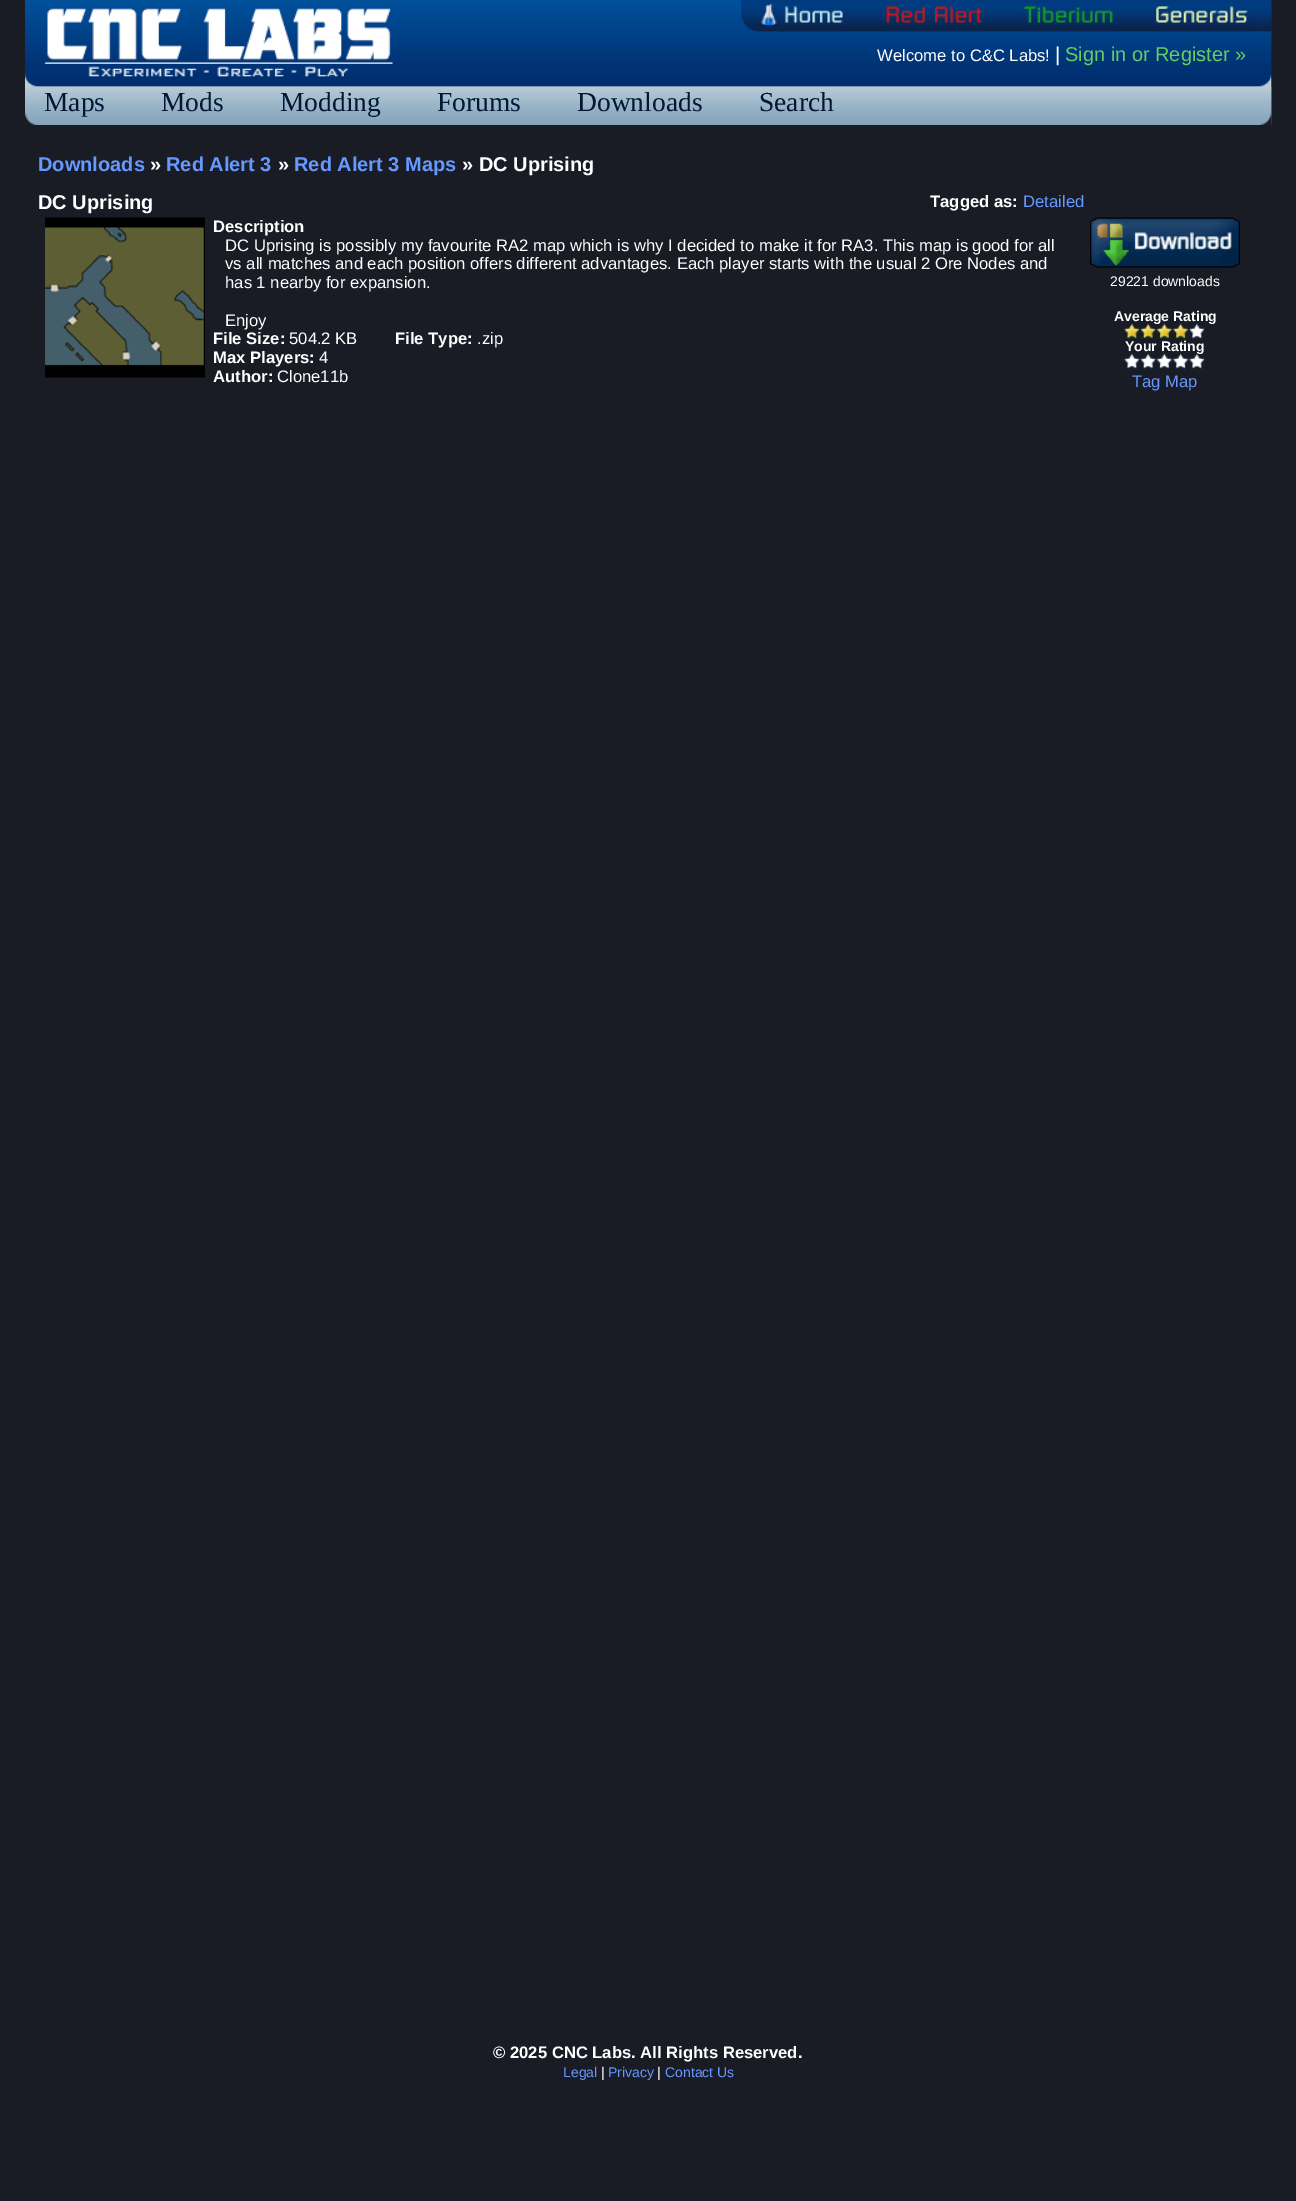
%!PS-Adobe-3.0
%%BoundingBox: 0 0 1296 2201
%%LanguageLevel: 3
%%Pages: 1
%%EndComments
%%BeginProlog
/setink { 3 { 255 div 3 1 roll } repeat setrgbcolor } def
/usefont { [ exch dup neg 0 0 3 -1 roll 0 0 ] selectfont } def
/drawtext { setink usefont moveto show } def
/fillbox { setink rectfill } def
/drawimage { 5 dict begin { /h /w /y /x /name } { exch def } forall
  gsave x y translate w h scale
  w h 8 [w 0 0 h 0 0] name (r) file false 3 colorimage grestore end } def
%%EndProlog
%%BeginSetup
<< /PageSize [1296 2201] >> setpagedevice
%%EndSetup
%%Page: 1 1
0 2201 translate 1 -1 scale
4 setmiterlimit
0 0 1296 2201 25 27 37 fillbox
(assets/img1.rgb) 25 0 1247 125 drawimage
(assets/img2.rgb) 44 8 349 69 drawimage
(assets/img8.rgb) 1258 0 14 125 drawimage
(assets/img3.rgb) 741 0 518 32 drawimage
(assets/img4.rgb) 759 3 87 29 drawimage
(assets/img5.rgb) 884 6 100 26 drawimage
(assets/img6.rgb) 1021 6 95 26 drawimage
(assets/img7.rgb) 1154 6 96 26 drawimage
(Welcome to C&C Labs!) 877 61 /LiberationSans-Regular 16.65 255 255 255 drawtext
(|) 1055 61 /LiberationSans-Regular 20 255 255 255 drawtext
(Sign in or Register ») 1065 61 /LiberationSans-Regular 20 102 204 102 drawtext
(Maps) 44 111 /LiberationSerif-Regular 27.5 1 23 53 drawtext
(Mods) 161 111 /LiberationSerif-Regular 27.5 1 23 53 drawtext
(Modding) 280 111 /LiberationSerif-Regular 27.5 1 23 53 drawtext
(Forums) 437 111 /LiberationSerif-Regular 27.5 1 23 53 drawtext
(Downloads) 577 111 /LiberationSerif-Regular 27.5 1 23 53 drawtext
(Search) 759 111 /LiberationSerif-Regular 27.5 1 23 53 drawtext
(Downloads) 38 171 /LiberationSans-Bold 20 102 153 255 drawtext
(») 150 171 /LiberationSans-Bold 20 255 255 255 drawtext
(Red Alert 3) 166 171 /LiberationSans-Bold 20 102 153 255 drawtext
(») 278 171 /LiberationSans-Bold 20 255 255 255 drawtext
(Red Alert 3 Maps) 294 171 /LiberationSans-Bold 20 102 153 255 drawtext
(» DC Uprising) 462 171 /LiberationSans-Bold 20 255 255 255 drawtext
(DC Uprising) 38 209 /LiberationSans-Bold 20 255 255 255 drawtext
(Tagged as:) 930 207 /LiberationSans-Bold 16.65 255 255 255 drawtext
(Detailed) 1023 207 /LiberationSans-Regular 16.65 102 153 255 drawtext
(assets/img9.rgb) 45 217 160 161 drawimage
(Description) 213 232 /LiberationSans-Bold 16.65 255 255 255 drawtext
(DC Uprising is possibly my favourite RA2 map which is why I decided to make it for RA3. This map is good for all) 225 251 /LiberationSans-Regular 16.65 255 255 255 drawtext
(vs all matches and each position offers different advantages. Each player starts with the usual 2 Ore Nodes and) 225 269 /LiberationSans-Regular 16.65 255 255 255 drawtext
(has 1 nearby for expansion.) 225 288 /LiberationSans-Regular 16.65 255 255 255 drawtext
(Enjoy) 225 326 /LiberationSans-Regular 16.65 255 255 255 drawtext
(File Size:) 213 344 /LiberationSans-Bold 16.65 255 255 255 drawtext
(504.2 KB) 289 344 /LiberationSans-Regular 16.65 255 255 255 drawtext
(File Type:) 395 344 /LiberationSans-Bold 16.65 255 255 255 drawtext
(.zip) 477 344 /LiberationSans-Regular 16.65 255 255 255 drawtext
(Max Players:) 213 363 /LiberationSans-Bold 16.65 255 255 255 drawtext
(4) 319 363 /LiberationSans-Regular 16.65 255 255 255 drawtext
(Author:) 213 382 /LiberationSans-Bold 16.65 255 255 255 drawtext
(Clone11b) 277 382 /LiberationSans-Regular 16.65 255 255 255 drawtext
(assets/img10.rgb) 1090 217 150 51 drawimage
(29221 downloads) 1110 286 /LiberationSans-Regular 14 255 255 255 drawtext
(assets/img11.rgb) 1123 323 17 16 drawimage
(assets/img12.rgb) 1140 323 17 16 drawimage
(assets/img13.rgb) 1156 323 17 16 drawimage
(assets/img14.rgb) 1172 323 17 16 drawimage
(assets/img15.rgb) 1188 323 17 16 drawimage
(Average Rating) 1114 321 /LiberationSans-Bold 14 255 255 255 drawtext
(assets/img16.rgb) 1123 353 17 16 drawimage
(assets/img17.rgb) 1140 353 17 16 drawimage
(assets/img18.rgb) 1156 353 17 16 drawimage
(assets/img19.rgb) 1172 353 17 16 drawimage
(assets/img20.rgb) 1188 353 17 16 drawimage
(Your Rating) 1125 351 /LiberationSans-Bold 14 255 255 255 drawtext
(Tag Map) 1132 387 /LiberationSans-Regular 16.65 102 153 255 drawtext
(© 2025 CNC Labs. All Rights Reserved.) 493 2058 /LiberationSans-Bold 16.65 255 255 255 drawtext
(Legal) 563 2077 /LiberationSans-Regular 14 102 153 255 drawtext
(|) 601 2077 /LiberationSans-Regular 14 255 255 255 drawtext
(Privacy) 608 2077 /LiberationSans-Regular 14 102 153 255 drawtext
(|) 657 2077 /LiberationSans-Regular 14 255 255 255 drawtext
(Contact Us) 665 2077 /LiberationSans-Regular 14 102 153 255 drawtext
showpage
%%EOF
